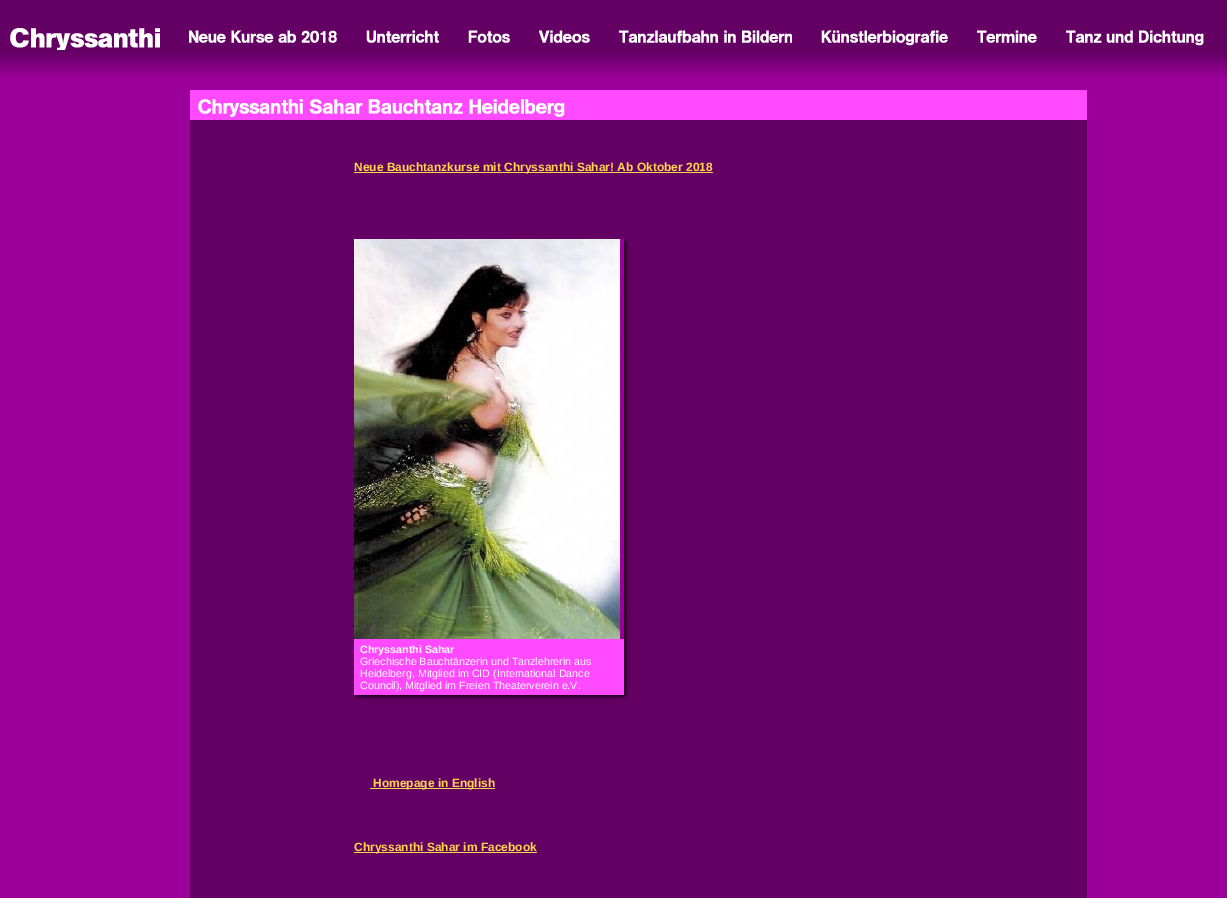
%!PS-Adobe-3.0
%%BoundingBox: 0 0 1227 898
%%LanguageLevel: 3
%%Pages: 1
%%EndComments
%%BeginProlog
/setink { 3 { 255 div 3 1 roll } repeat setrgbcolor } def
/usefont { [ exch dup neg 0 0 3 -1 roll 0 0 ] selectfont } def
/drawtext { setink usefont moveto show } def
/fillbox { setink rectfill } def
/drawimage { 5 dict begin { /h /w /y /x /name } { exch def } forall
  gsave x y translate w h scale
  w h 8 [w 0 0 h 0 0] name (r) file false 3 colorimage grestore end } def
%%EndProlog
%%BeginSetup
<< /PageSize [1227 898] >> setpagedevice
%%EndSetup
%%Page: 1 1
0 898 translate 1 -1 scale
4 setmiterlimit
0 0 1227 898 155 0 155 fillbox
0 0 1227 50 100 0 100 fillbox
(assets/img1.rgb) 10 28 150 22 drawimage
(assets/img2.rgb) 189 30 148 13 drawimage
(assets/img3.rgb) 366 30 73 13 drawimage
(assets/img4.rgb) 468 30 42 13 drawimage
(assets/img5.rgb) 539 30 51 13 drawimage
(assets/img6.rgb) 619 30 173 13 drawimage
(assets/img7.rgb) 821 30 127 16 drawimage
(assets/img8.rgb) 977 30 60 13 drawimage
(assets/img9.rgb) 1066 30 138 16 drawimage
(assets/img10.rgb) 0 50 1227 26 drawimage
190 120 897 778 100 0 100 fillbox
190 90 897 30 255 74 255 fillbox
(assets/img11.rgb) 198 99 367 18 drawimage
354 172 359 1 255 215 75 fillbox
(Neue Bauchtanzkurse mit Chryssanthi Sahar! Ab Oktober 2018) 354 171 /LiberationSans-Bold 12 255 215 75 drawtext
620 239 4 400 155 0 155 fillbox
(assets/img12.rgb) 354 239 266 400 drawimage
(assets/img13.rgb) 624 239 5 400 drawimage
(assets/img14.rgb) 624 239 4 3 drawimage
354 639 270 4 255 74 255 fillbox
(assets/img15.rgb) 624 639 5 4 drawimage
354 643 270 48 255 74 255 fillbox
(assets/img16.rgb) 624 643 5 48 drawimage
(Chryssanthi Sahar) 360 653 /LiberationSans-Bold 10.7 255 255 254 drawtext
(Griechische Bauchtänzerin und Tanzlehrerin aus) 360 665 /LiberationSans-Regular 10.7 255 255 254 drawtext
(Heidelberg, Mitglied im CID \(International Dance) 360 677 /LiberationSans-Regular 10.7 255 255 254 drawtext
354 691 270 4 255 74 255 fillbox
(Council\), Mitglied im Freien Theaterverein e.V.) 360 689 /LiberationSans-Regular 10.7 255 255 254 drawtext
(assets/img15.rgb) 624 691 5 4 drawimage
(assets/img17.rgb) 354 695 274 5 drawimage
370 788 125 1 255 215 75 fillbox
(Homepage in English) 373 787 /LiberationSans-Bold 12 255 215 75 drawtext
354 852 183 1 255 215 75 fillbox
(Chryssanthi Sahar im Facebook) 354 851 /LiberationSans-Bold 12 255 215 75 drawtext
showpage
%%EOF
